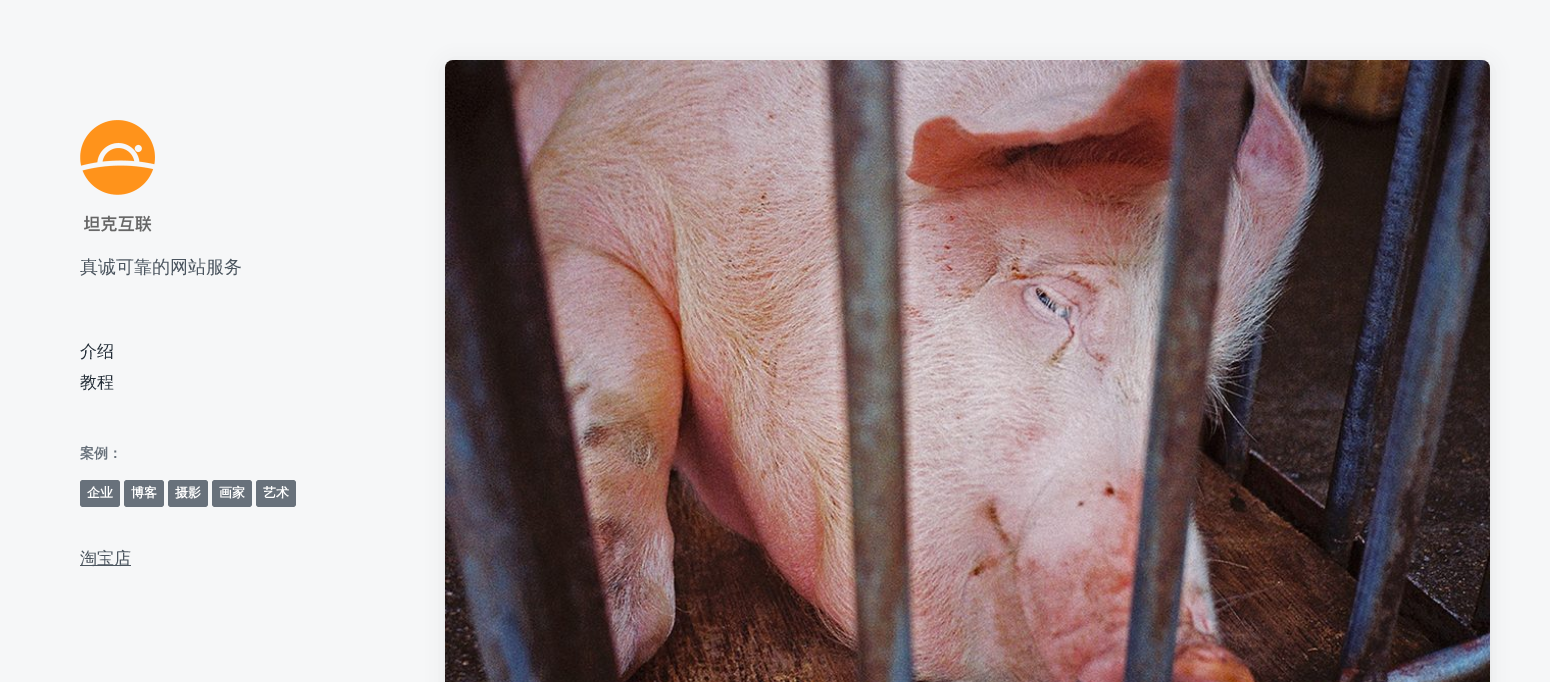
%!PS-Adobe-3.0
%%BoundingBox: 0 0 1550 682
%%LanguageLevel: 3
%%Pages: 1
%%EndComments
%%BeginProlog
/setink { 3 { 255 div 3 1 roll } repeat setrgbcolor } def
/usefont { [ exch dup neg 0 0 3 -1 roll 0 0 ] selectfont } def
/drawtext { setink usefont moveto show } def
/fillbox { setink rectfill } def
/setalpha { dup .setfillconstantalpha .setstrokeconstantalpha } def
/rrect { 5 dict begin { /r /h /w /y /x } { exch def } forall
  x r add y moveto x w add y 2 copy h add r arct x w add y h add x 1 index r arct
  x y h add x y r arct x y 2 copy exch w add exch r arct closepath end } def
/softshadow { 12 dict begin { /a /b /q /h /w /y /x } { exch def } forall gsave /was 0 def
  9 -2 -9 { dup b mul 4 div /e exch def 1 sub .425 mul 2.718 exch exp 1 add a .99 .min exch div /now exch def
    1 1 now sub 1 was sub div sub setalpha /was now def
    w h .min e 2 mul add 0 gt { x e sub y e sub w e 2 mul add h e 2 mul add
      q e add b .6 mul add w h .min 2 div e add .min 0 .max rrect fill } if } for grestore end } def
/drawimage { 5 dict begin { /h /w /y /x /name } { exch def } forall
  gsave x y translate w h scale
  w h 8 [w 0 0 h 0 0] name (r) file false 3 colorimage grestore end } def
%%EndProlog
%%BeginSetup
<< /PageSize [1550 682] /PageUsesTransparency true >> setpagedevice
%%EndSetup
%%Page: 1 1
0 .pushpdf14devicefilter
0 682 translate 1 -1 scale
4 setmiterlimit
0 0 1550 682 246 247 248 fillbox
(assets/img1.rgb) 80 120 75 112 drawimage
(真诚可靠的网站服务) 80 273 /WenQuanYiZenHei-Medium 18 75 85 95 drawtext
(介绍) 80 357 /WenQuanYiZenHei-Medium 17 35 45 55 drawtext
(教程) 80 388 /WenQuanYiZenHei-Medium 17 35 45 55 drawtext
(案例：) 80 458 /WenQuanYiZenHei-Bold 14 104 113 123 drawtext
80 480 40 27 3 rrect fill
(企业) 87 497 /WenQuanYiZenHei-Bold 13 255 255 255 drawtext
104 113 123 setink
124 480 40 27 3 rrect fill
(博客) 131 497 /WenQuanYiZenHei-Bold 13 255 255 255 drawtext
104 113 123 setink
168 480 40 27 3 rrect fill
(摄影) 175 497 /WenQuanYiZenHei-Bold 13 255 255 255 drawtext
104 113 123 setink
212 480 40 27 3 rrect fill
(画家) 219 497 /WenQuanYiZenHei-Bold 13 255 255 255 drawtext
104 113 123 setink
256 480 40 27 3 rrect fill
(艺术) 263 497 /WenQuanYiZenHei-Bold 13 255 255 255 drawtext
80 565 51 1 75 85 95 fillbox
(淘宝店) 80 564 /WenQuanYiZenHei-Medium 17 75 85 95 drawtext
5 10 15 setink
445 63 1045 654 8 9 0.07 softshadow
(assets/img2.rgb) 445 60 1045 622 drawimage
.poppdf14devicefilter showpage
%%EOF
